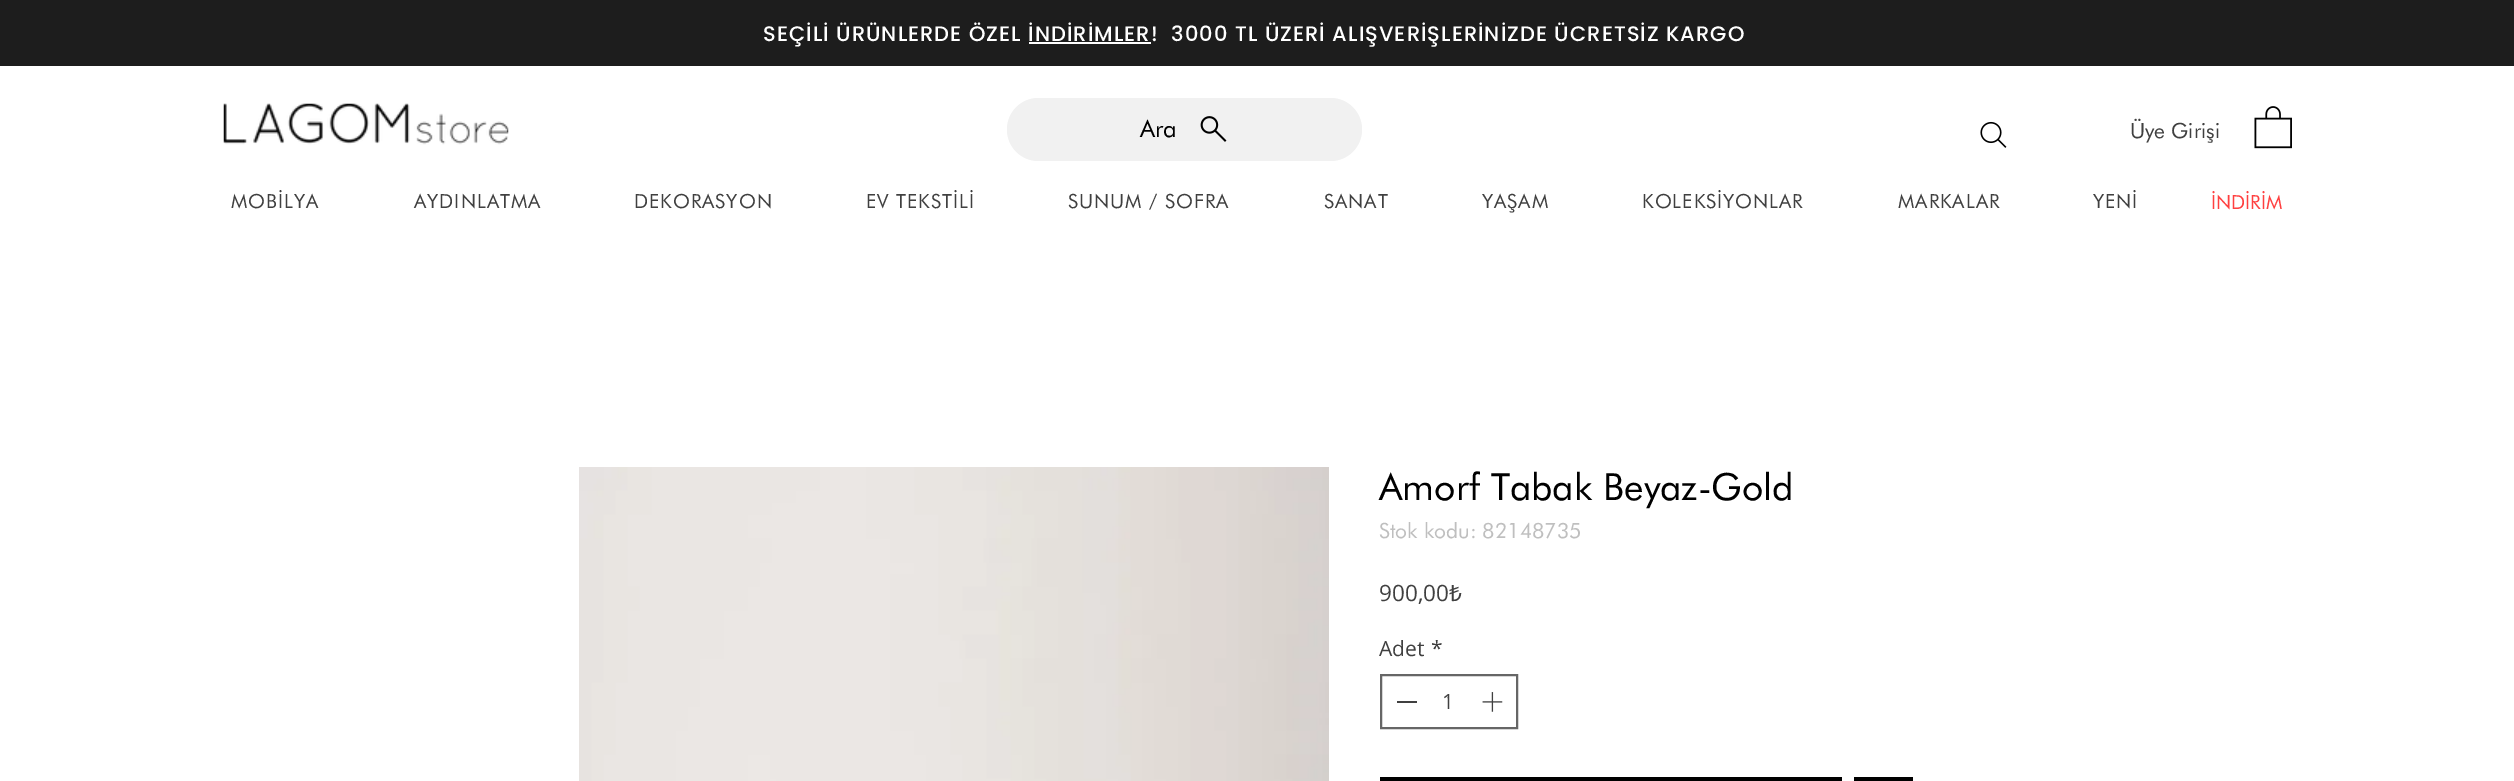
%!PS-Adobe-3.0
%%BoundingBox: 0 0 2514 781
%%LanguageLevel: 3
%%Pages: 1
%%EndComments
%%BeginProlog
/setink { 3 { 255 div 3 1 roll } repeat setrgbcolor } def
/usefont { [ exch dup neg 0 0 3 -1 roll 0 0 ] selectfont } def
/drawtext { setink usefont moveto show } def
/fillbox { setink rectfill } def
/rrect { 5 dict begin { /r /h /w /y /x } { exch def } forall
  x r add y moveto x w add y 2 copy h add r arct x w add y h add x 1 index r arct
  x y h add x y r arct x y 2 copy exch w add exch r arct closepath end } def
/drawimage { 5 dict begin { /h /w /y /x /name } { exch def } forall
  gsave x y translate w h scale
  w h 8 [w 0 0 h 0 0] name (r) file false 3 colorimage grestore end } def
%%EndProlog
%%BeginSetup
<< /PageSize [2514 781] >> setpagedevice
%%EndSetup
%%Page: 1 1
0 781 translate 1 -1 scale
4 setmiterlimit
0 0 2514 781 255 255 255 fillbox
0 0 2514 66 29 29 29 fillbox
/Poppins-Medium 21 usefont
255 255 255 setink
763 41 moveto 1.05 0 (SEÇİLİ ÜRÜNLERDE ÖZEL İNDİRİMLER!  3000 TL ÜZERİ ALIŞVERİŞLERİNİZDE ÜCRETSİZ KARGO) ashow
1029 42 122 2 255 255 255 fillbox
241 241 241 setink
1007 98 355 63 31.5 rrect fill
(Ara) 1140 137 /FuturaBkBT-Regular 24 0 0 0 drawtext
(assets/img1.rgb) 1200 116 27 26 drawimage
(assets/img2.rgb) 1980 121 27 27 drawimage
(assets/img3.rgb) 223 103 286 42 drawimage
(Üye Girişi) 2130 138 /FuturaBkBT-Regular 21 64 64 64 drawtext
(assets/img4.rgb) 2254 106 38 43 drawimage
/FuturaBkBT-Regular 19.5 usefont
231 208 moveto 1 0 (MOBİLYA) ashow
414 208 moveto 1 0 (AYDINLATMA) ashow
634 208 moveto 1 0 (DEKORASYON) ashow
866 208 moveto 1 0 (EV TEKSTİLİ) ashow
1068 208 moveto 1 0 (SUNUM / SOFRA) ashow
1324 208 moveto 1 0 (SANAT) ashow
1482 208 moveto 1 0 (YAŞAM) ashow
1642 208 moveto 1 0 (KOLEKSİYONLAR) ashow
1898 208 moveto 1 0 (MARKALAR) ashow
2093 208 moveto 1 0 (YENİ) ashow
(İNDİRİM) 2211 209 /FuturaBkBT-Regular 19.5 255 64 64 drawtext
(assets/img5.rgb) 579 467 750 314 drawimage
(Amorf Tabak Beyaz-Gold) 1379 500 /FuturaBkBT-Regular 37.5 0 0 0 drawtext
(Stok kodu: 82148735) 1379 538 /FuturaBkBT-Regular 21 191 191 191 drawtext
(900,00) 1379 601 /OpenSans-Regular 22.5 64 64 64 drawtext
(₺) 1449 601 /NotoSans-Regular 22.5 64 64 64 drawtext
(Adet) 1379 656 /OpenSans-Regular 21 64 64 64 drawtext
(*) 1431 656 /OpenSans-Regular 21 64 64 64 drawtext
102 102 102 setink
2 setlinewidth
1381 675 136 53 rectstroke
1397 701 20 2 64 64 64 fillbox
(1) 1442 709 /OpenSans-Regular 21 64 64 64 drawtext
(assets/img6.rgb) 1482 692 21 20 drawimage
1380 777 462 4 0 0 0 fillbox
1854 777 59 4 0 0 0 fillbox
showpage
%%EOF
